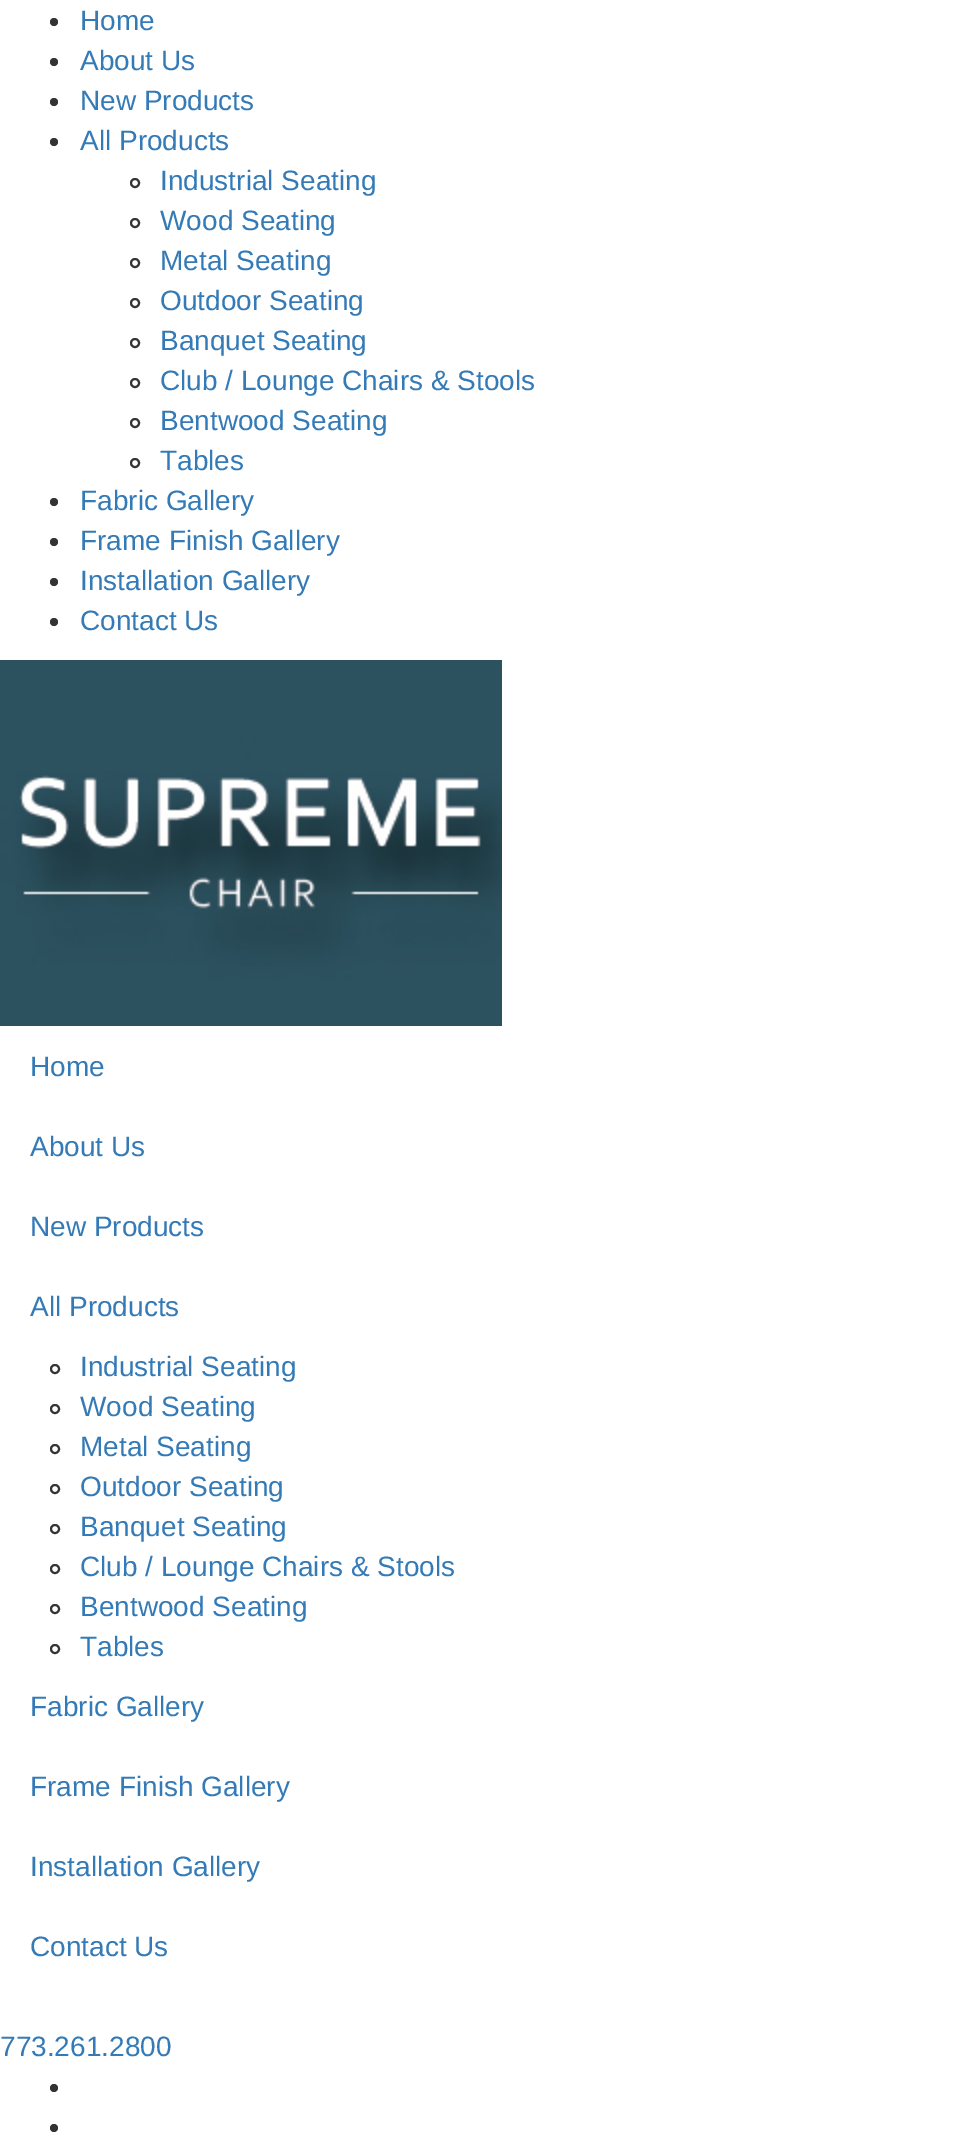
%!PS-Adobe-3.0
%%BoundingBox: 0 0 960 2143
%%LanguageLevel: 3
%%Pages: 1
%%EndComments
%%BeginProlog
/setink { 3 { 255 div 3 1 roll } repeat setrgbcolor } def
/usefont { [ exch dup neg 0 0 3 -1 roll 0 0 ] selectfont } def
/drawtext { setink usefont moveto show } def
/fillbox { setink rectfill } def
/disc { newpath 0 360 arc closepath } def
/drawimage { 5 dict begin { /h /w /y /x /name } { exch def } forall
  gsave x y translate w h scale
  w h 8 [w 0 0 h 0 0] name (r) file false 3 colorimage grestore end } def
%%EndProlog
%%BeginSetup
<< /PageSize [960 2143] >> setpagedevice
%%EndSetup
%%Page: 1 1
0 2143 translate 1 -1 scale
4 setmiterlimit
0 0 960 2143 255 255 255 fillbox
51 51 51 setink
54 22 4 disc fill
(Home) 80 30 /LiberationSans-Regular 28 51 122 183 drawtext
51 51 51 setink
54 62 4 disc fill
(About Us) 80 70 /LiberationSans-Regular 28 51 122 183 drawtext
51 51 51 setink
54 102 4 disc fill
(New Products) 80 110 /LiberationSans-Regular 28 51 122 183 drawtext
51 51 51 setink
54 142 4 disc fill
(All Products) 80 150 /LiberationSans-Regular 28 51 122 183 drawtext
51 51 51 setink
2 setlinewidth
135 183 4 disc stroke
(Industrial Seating) 160 190 /LiberationSans-Regular 28 51 122 183 drawtext
51 51 51 setink
135 223 4 disc stroke
(Wood Seating) 160 230 /LiberationSans-Regular 28 51 122 183 drawtext
51 51 51 setink
135 263 4 disc stroke
(Metal Seating) 160 270 /LiberationSans-Regular 28 51 122 183 drawtext
51 51 51 setink
135 303 4 disc stroke
(Outdoor Seating) 160 310 /LiberationSans-Regular 28 51 122 183 drawtext
51 51 51 setink
135 343 4 disc stroke
(Banquet Seating) 160 350 /LiberationSans-Regular 28 51 122 183 drawtext
51 51 51 setink
135 383 4 disc stroke
(Club / Lounge Chairs & Stools) 160 390 /LiberationSans-Regular 28 51 122 183 drawtext
51 51 51 setink
135 423 4 disc stroke
(Bentwood Seating) 160 430 /LiberationSans-Regular 28 51 122 183 drawtext
51 51 51 setink
135 463 4 disc stroke
(Tables) 160 470 /LiberationSans-Regular 28 51 122 183 drawtext
51 51 51 setink
54 502 4 disc fill
(Fabric Gallery) 80 510 /LiberationSans-Regular 28 51 122 183 drawtext
51 51 51 setink
54 542 4 disc fill
(Frame Finish Gallery) 80 550 /LiberationSans-Regular 28 51 122 183 drawtext
51 51 51 setink
54 582 4 disc fill
(Installation Gallery) 80 590 /LiberationSans-Regular 28 51 122 183 drawtext
51 51 51 setink
54 622 4 disc fill
(Contact Us) 80 630 /LiberationSans-Regular 28 51 122 183 drawtext
(assets/img1.rgb) 0 660 502 366 drawimage
(Home) 30 1076 /LiberationSans-Regular 28 51 122 183 drawtext
(About Us) 30 1156 /LiberationSans-Regular 28 51 122 183 drawtext
(New Products) 30 1236 /LiberationSans-Regular 28 51 122 183 drawtext
(All Products) 30 1316 /LiberationSans-Regular 28 51 122 183 drawtext
51 51 51 setink
55 1369 4 disc stroke
(Industrial Seating) 80 1376 /LiberationSans-Regular 28 51 122 183 drawtext
51 51 51 setink
55 1409 4 disc stroke
(Wood Seating) 80 1416 /LiberationSans-Regular 28 51 122 183 drawtext
51 51 51 setink
55 1449 4 disc stroke
(Metal Seating) 80 1456 /LiberationSans-Regular 28 51 122 183 drawtext
51 51 51 setink
55 1489 4 disc stroke
(Outdoor Seating) 80 1496 /LiberationSans-Regular 28 51 122 183 drawtext
51 51 51 setink
55 1529 4 disc stroke
(Banquet Seating) 80 1536 /LiberationSans-Regular 28 51 122 183 drawtext
51 51 51 setink
55 1569 4 disc stroke
(Club / Lounge Chairs & Stools) 80 1576 /LiberationSans-Regular 28 51 122 183 drawtext
51 51 51 setink
55 1609 4 disc stroke
(Bentwood Seating) 80 1616 /LiberationSans-Regular 28 51 122 183 drawtext
51 51 51 setink
55 1649 4 disc stroke
(Tables) 80 1656 /LiberationSans-Regular 28 51 122 183 drawtext
(Fabric Gallery) 30 1716 /LiberationSans-Regular 28 51 122 183 drawtext
(Frame Finish Gallery) 30 1796 /LiberationSans-Regular 28 51 122 183 drawtext
(Installation Gallery) 30 1876 /LiberationSans-Regular 28 51 122 183 drawtext
(Contact Us) 30 1956 /LiberationSans-Regular 28 51 122 183 drawtext
(773.261.2800) 0 2056 /LiberationSans-Regular 28 51 122 183 drawtext
51 51 51 setink
54 2088 4 disc fill
54 2128 4 disc fill
showpage
%%EOF
